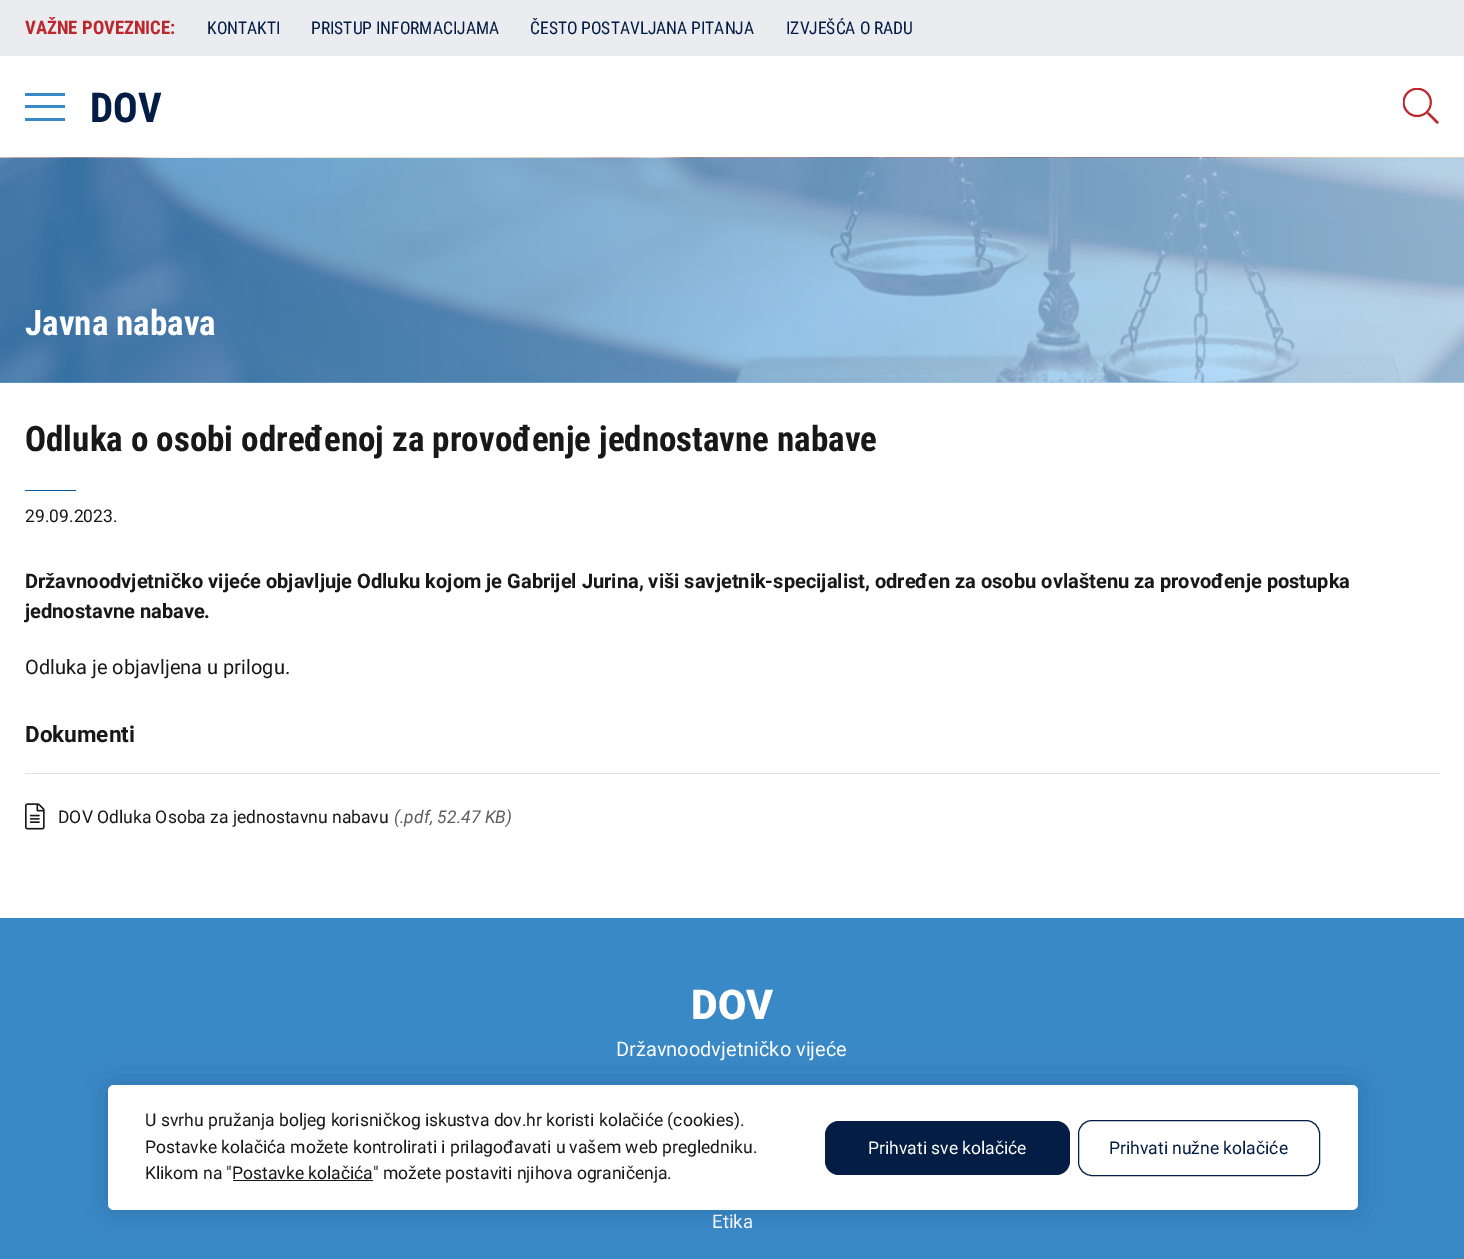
%!PS-Adobe-3.0
%%BoundingBox: 0 0 1464 1259
%%LanguageLevel: 3
%%Pages: 1
%%EndComments
%%BeginProlog
/setink { 3 { 255 div 3 1 roll } repeat setrgbcolor } def
/usefont { [ exch dup neg 0 0 3 -1 roll 0 0 ] selectfont } def
/drawtext { setink usefont moveto show } def
/fillbox { setink rectfill } def
/setalpha { dup .setfillconstantalpha .setstrokeconstantalpha } def
/rrect { 5 dict begin { /r /h /w /y /x } { exch def } forall
  x r add y moveto x w add y 2 copy h add r arct x w add y h add x 1 index r arct
  x y h add x y r arct x y 2 copy exch w add exch r arct closepath end } def
/softshadow { 12 dict begin { /a /b /q /h /w /y /x } { exch def } forall gsave /was 0 def
  9 -2 -9 { dup b mul 4 div /e exch def 1 sub .425 mul 2.718 exch exp 1 add a .99 .min exch div /now exch def
    1 1 now sub 1 was sub div sub setalpha /was now def
    w h .min e 2 mul add 0 gt { x e sub y e sub w e 2 mul add h e 2 mul add
      q e add b .6 mul add w h .min 2 div e add .min 0 .max rrect fill } if } for grestore end } def
/drawimage { 5 dict begin { /h /w /y /x /name } { exch def } forall
  gsave x y translate w h scale
  w h 8 [w 0 0 h 0 0] name (r) file false 3 colorimage grestore end } def
%%EndProlog
%%BeginSetup
<< /PageSize [1464 1259] /PageUsesTransparency true >> setpagedevice
%%EndSetup
%%Page: 1 1
0 .pushpdf14devicefilter
0 1259 translate 1 -1 scale
4 setmiterlimit
0 0 1464 1259 255 255 255 fillbox
0 0 1464 56 234 236 239 fillbox
(VAŽNE POVEZNICE:) 25 34 /RobotoCondensed-Bold 18.75 187 39 45 drawtext
(KONTAKTI) 207 34 /RobotoCondensed-Regular 17.5 3 29 68 drawtext
(PRISTUP INFORMACIJAMA) 311 34 /RobotoCondensed-Regular 17.5 3 29 68 drawtext
(ČESTO POSTAVLJANA PITANJA) 530 34 /RobotoCondensed-Regular 17.5 3 29 68 drawtext
(IZVJEŠĆA O RADU) 786 34 /RobotoCondensed-Regular 17.5 3 29 68 drawtext
25 93 40 3 58 137 199 fillbox
25 105 40 3 58 137 199 fillbox
25 118 40 3 58 137 199 fillbox
(DOV) 90 122 /RobotoCondensed-Bold 41 3 29 68 drawtext
(assets/img1.rgb) 1403 88 36 36 drawimage
(assets/img2.rgb) 0 157 1464 226 drawimage
0.79 setalpha
gsave 0 158 moveto 1464 158 lineto 1464 383 lineto 0 383 lineto closepath clip newpath
<< /ShadingType 2 /ColorSpace /DeviceRGB /Coords [0 270 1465 270] /Extend [true true] /Function << /FunctionType 2 /Domain [0 1] /C0 [0.227 0.537 0.78] /C1 [0.698 0.871 1] /N 1 >> >> shfill grestore
1 setalpha
(Javna nabava) 25 335 /RobotoCondensed-Bold 35 255 255 255 drawtext
(Odluka o osobi određenoj za provođenje jednostavne nabave) 25 451 /RobotoCondensed-Bold 35 24 24 24 drawtext
25 490 51 1 9 87 146 fillbox
(29.09.2023.) 25 522 /Roboto-Regular 17.5 24 24 24 drawtext
(Državnoodvjetničko vijeće objavljuje Odluku kojom je Gabrijel Jurina, viši savjetnik-specijalist, određen za osobu ovlaštenu za provođenje postupka) 25 588 /Roboto-Bold 20 24 24 24 drawtext
(jednostavne nabave.) 25 618 /Roboto-Bold 20 24 24 24 drawtext
(Odluka je objavljena u prilogu.) 25 674 /Roboto-Regular 20 24 24 24 drawtext
(Dokumenti) 25 742 /Roboto-Bold 22.5 24 24 24 drawtext
25 773 1415 1 220 223 228 fillbox
(assets/img3.rgb) 25 803 20 27 drawimage
(DOV Odluka Osoba za jednostavnu nabavu) 58 823 /Roboto-Regular 17.5 24 24 24 drawtext
(\(.pdf, 52.47 KB\)) 394 823 /Roboto-Italic 17.5 95 95 95 drawtext
0 918 1464 341 58 137 199 fillbox
(DOV) 691 1019 /Roboto-Black 41 255 255 255 drawtext
(Državnoodvjetničko vijeće) 616 1056 /Roboto-Regular 20 255 255 255 drawtext
(Etika) 712 1228 /Roboto-Regular 18.75 255 255 255 drawtext
4 57 94 setink
108 1085 1250 125 6 15 0.25 softshadow
255 255 255 setink
108 1085 1250 125 6 rrect fill
(U svrhu pružanja boljeg korisničkog iskustva dov.hr koristi kolačiće \(cookies\).) 145 1126 /Roboto-Regular 17.5 24 24 24 drawtext
(Postavke kolačića možete kontrolirati i prilagođavati u vašem web pregledniku.) 145 1153 /Roboto-Regular 17.5 24 24 24 drawtext
(Klikom na "Postavke kolačića" možete postaviti njihova ograničenja.) 145 1179 /Roboto-Regular 17.5 24 24 24 drawtext
233 1180 140 1 24 24 24 fillbox
3 29 68 setink
825 1121 245 54 14 rrect fill
(Prihvati sve kolačiće) 868 1154 /Roboto-Regular 17.5 255 255 255 drawtext
3 29 68 setink
1078.5 1120.5 241 55 13.5 rrect stroke
(Prihvati nužne kolačiće) 1109 1154 /Roboto-Regular 17.5 3 29 68 drawtext
.poppdf14devicefilter showpage
%%EOF
